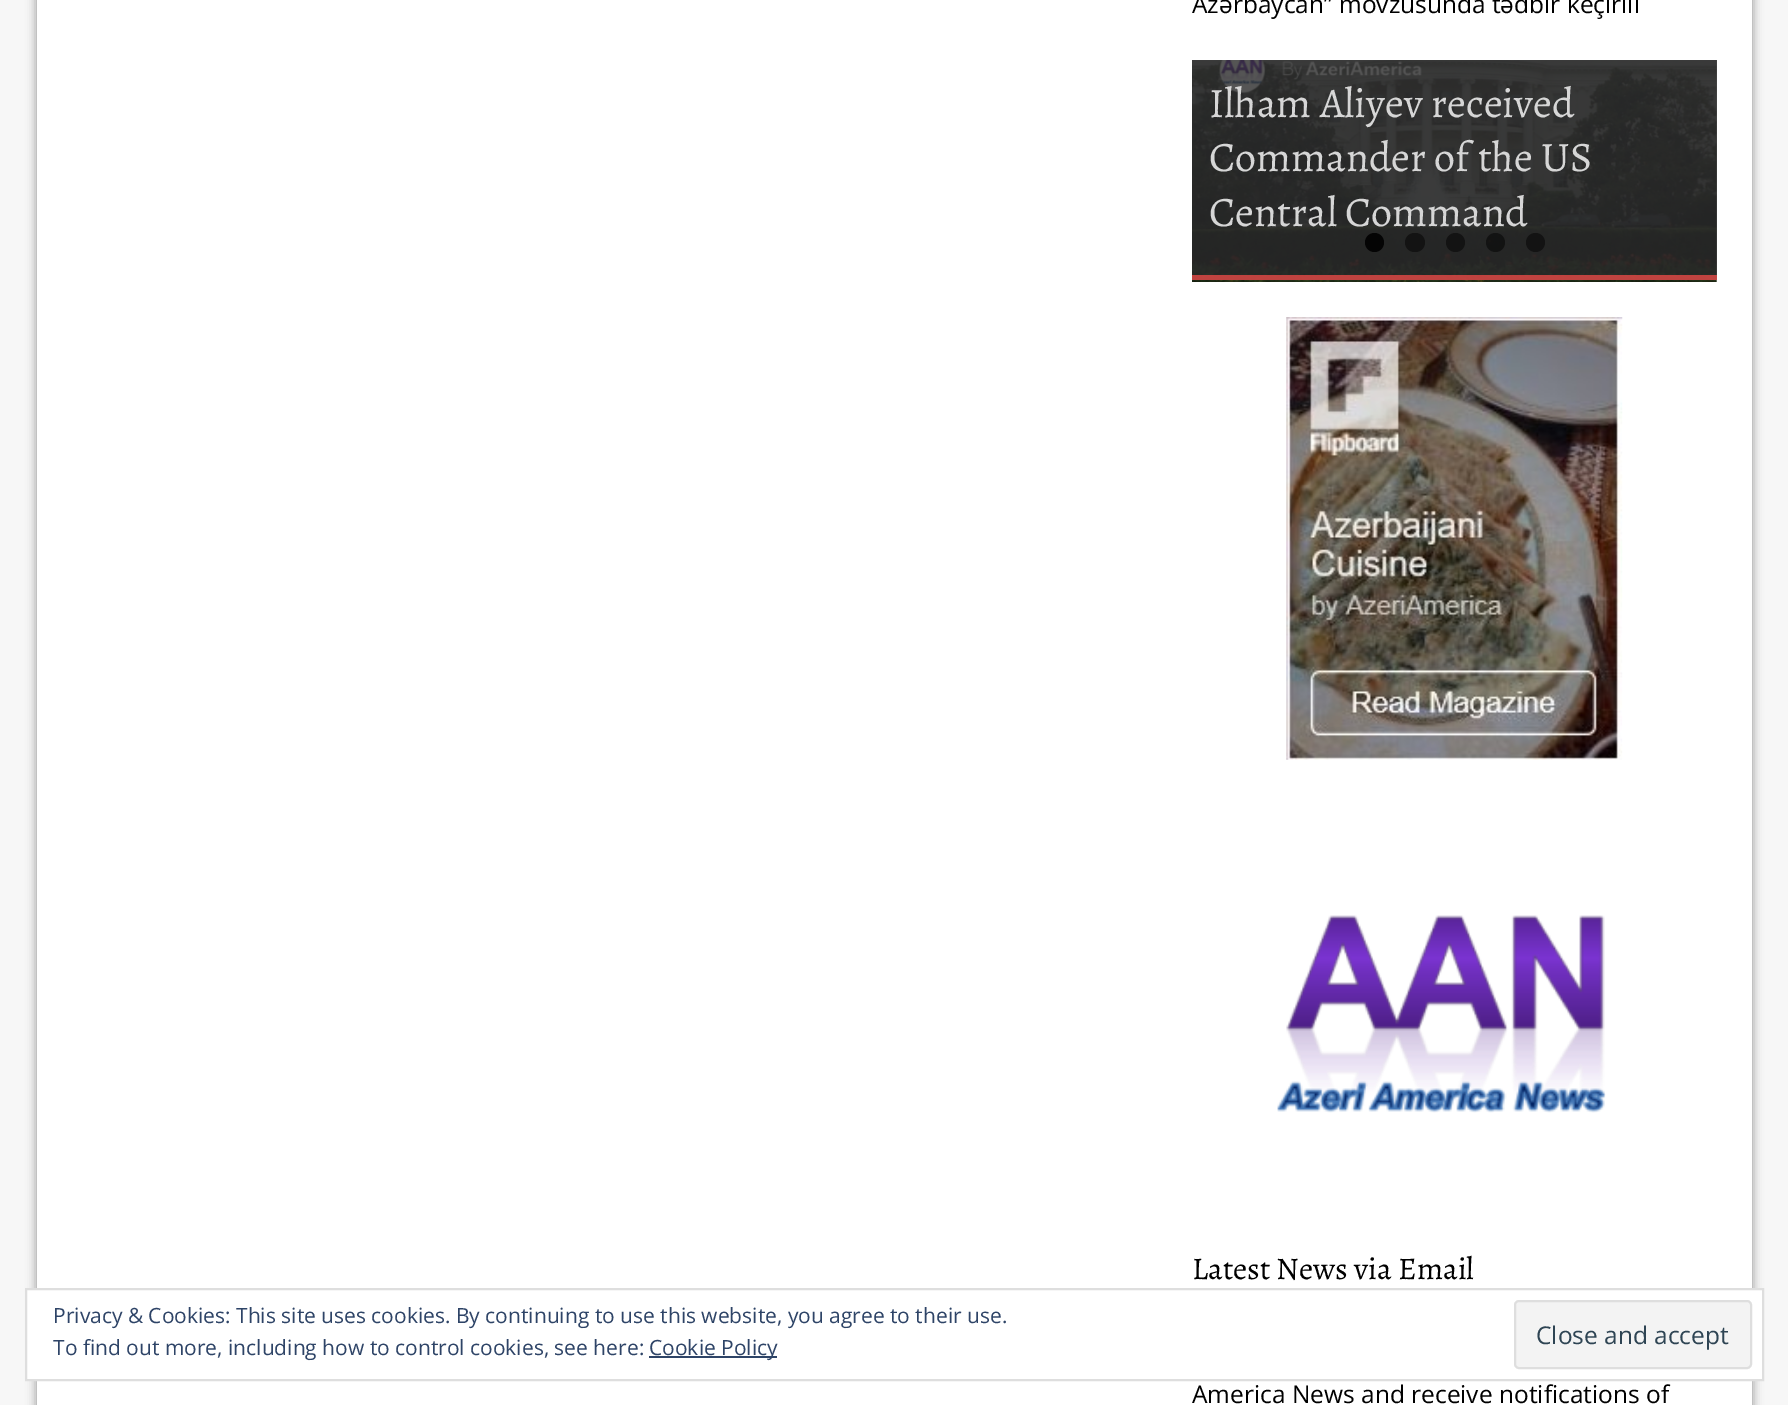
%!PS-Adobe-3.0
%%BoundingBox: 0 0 1788 1405
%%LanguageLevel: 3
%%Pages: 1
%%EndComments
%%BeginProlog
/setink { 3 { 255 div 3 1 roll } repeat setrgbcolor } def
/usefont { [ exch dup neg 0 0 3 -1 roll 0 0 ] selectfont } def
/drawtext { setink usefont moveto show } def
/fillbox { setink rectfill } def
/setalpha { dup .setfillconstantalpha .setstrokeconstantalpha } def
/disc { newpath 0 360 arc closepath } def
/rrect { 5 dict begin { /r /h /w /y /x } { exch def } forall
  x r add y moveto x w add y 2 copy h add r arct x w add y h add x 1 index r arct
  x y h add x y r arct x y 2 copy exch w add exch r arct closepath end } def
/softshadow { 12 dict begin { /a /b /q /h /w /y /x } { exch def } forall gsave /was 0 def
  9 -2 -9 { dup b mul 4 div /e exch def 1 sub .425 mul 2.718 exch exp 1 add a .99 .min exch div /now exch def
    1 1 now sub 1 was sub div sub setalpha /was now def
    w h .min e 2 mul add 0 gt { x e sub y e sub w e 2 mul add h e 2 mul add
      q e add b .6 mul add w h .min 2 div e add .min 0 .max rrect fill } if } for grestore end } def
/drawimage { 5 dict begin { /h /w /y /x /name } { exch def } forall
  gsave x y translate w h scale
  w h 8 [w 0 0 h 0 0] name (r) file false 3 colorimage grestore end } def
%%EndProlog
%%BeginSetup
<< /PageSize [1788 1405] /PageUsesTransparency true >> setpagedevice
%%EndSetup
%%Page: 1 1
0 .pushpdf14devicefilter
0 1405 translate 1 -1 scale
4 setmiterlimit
0 0 1788 1405 247 247 247 fillbox
168 168 168 setink
35 -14 1719 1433 0 4.5 1 softshadow
37 0 1715 1405 255 255 255 fillbox
1192 60 525 220 85 85 85 fillbox
(Azərbaycan” mövzusunda tədbir keçirili) 1192 13 /OpenSans-Regular 24.5 0 0 0 drawtext
(assets/img1.rgb) 1192 60 525 222 drawimage
0.8 setalpha
1192 275 525 5 230 73 70 fillbox
1 setalpha
(Ilham Aliyev received) 1209 117 /Alegreya-Regular 42 214 214 214 drawtext
(Commander of the US) 1209 171 /Alegreya-Regular 42 214 214 214 drawtext
(Central Command) 1209 226 /Alegreya-Regular 42 214 214 214 drawtext
4 4 4 setink
1374.5 242.5 9.5 disc fill
19 19 19 setink
1405 233 20 19 9.5 rrect fill
1455.5 242.5 9.5 disc fill
0.5 setalpha
0 0 0 setink
1495.5 242.5 9.5 disc fill
1 setalpha
19 19 19 setink
1535.5 242.5 9.5 disc fill
(assets/img2.rgb) 1286 317 337 443 drawimage
(assets/img3.rgb) 1277 915 329 198 drawimage
(Latest News via Email) 1192 1279 /Alegreya-Regular 31.5 0 0 0 drawtext
(America News and receive notifications of) 1192 1403 /OpenSans-Regular 24.5 0 0 0 drawtext
255 255 255 setink
26 1289 moveto 1763 1289 lineto 1763 1380 lineto 26 1380 lineto closepath gsave fill grestore
222 222 222 setink
2 setlinewidth
stroke
(Privacy & Cookies: This site uses cookies. By continuing to use this website, you agree to their use.) 53 1323 /OpenSans-Regular 21 46 68 103 drawtext
(To find out more, including how to control cookies, see here:) 53 1355 /OpenSans-Regular 21 46 68 103 drawtext
649 1356 128 2 46 68 103 fillbox
(Cookie Policy) 649 1355 /OpenSans-Regular 21 46 68 103 drawtext
243 243 243 setink
1515 1301 236 67 4 rrect gsave fill grestore
222 222 222 setink
stroke
(Close and accept) 1536 1344 /OpenSans-Regular 24.5 46 68 83 drawtext
.poppdf14devicefilter showpage
%%EOF
